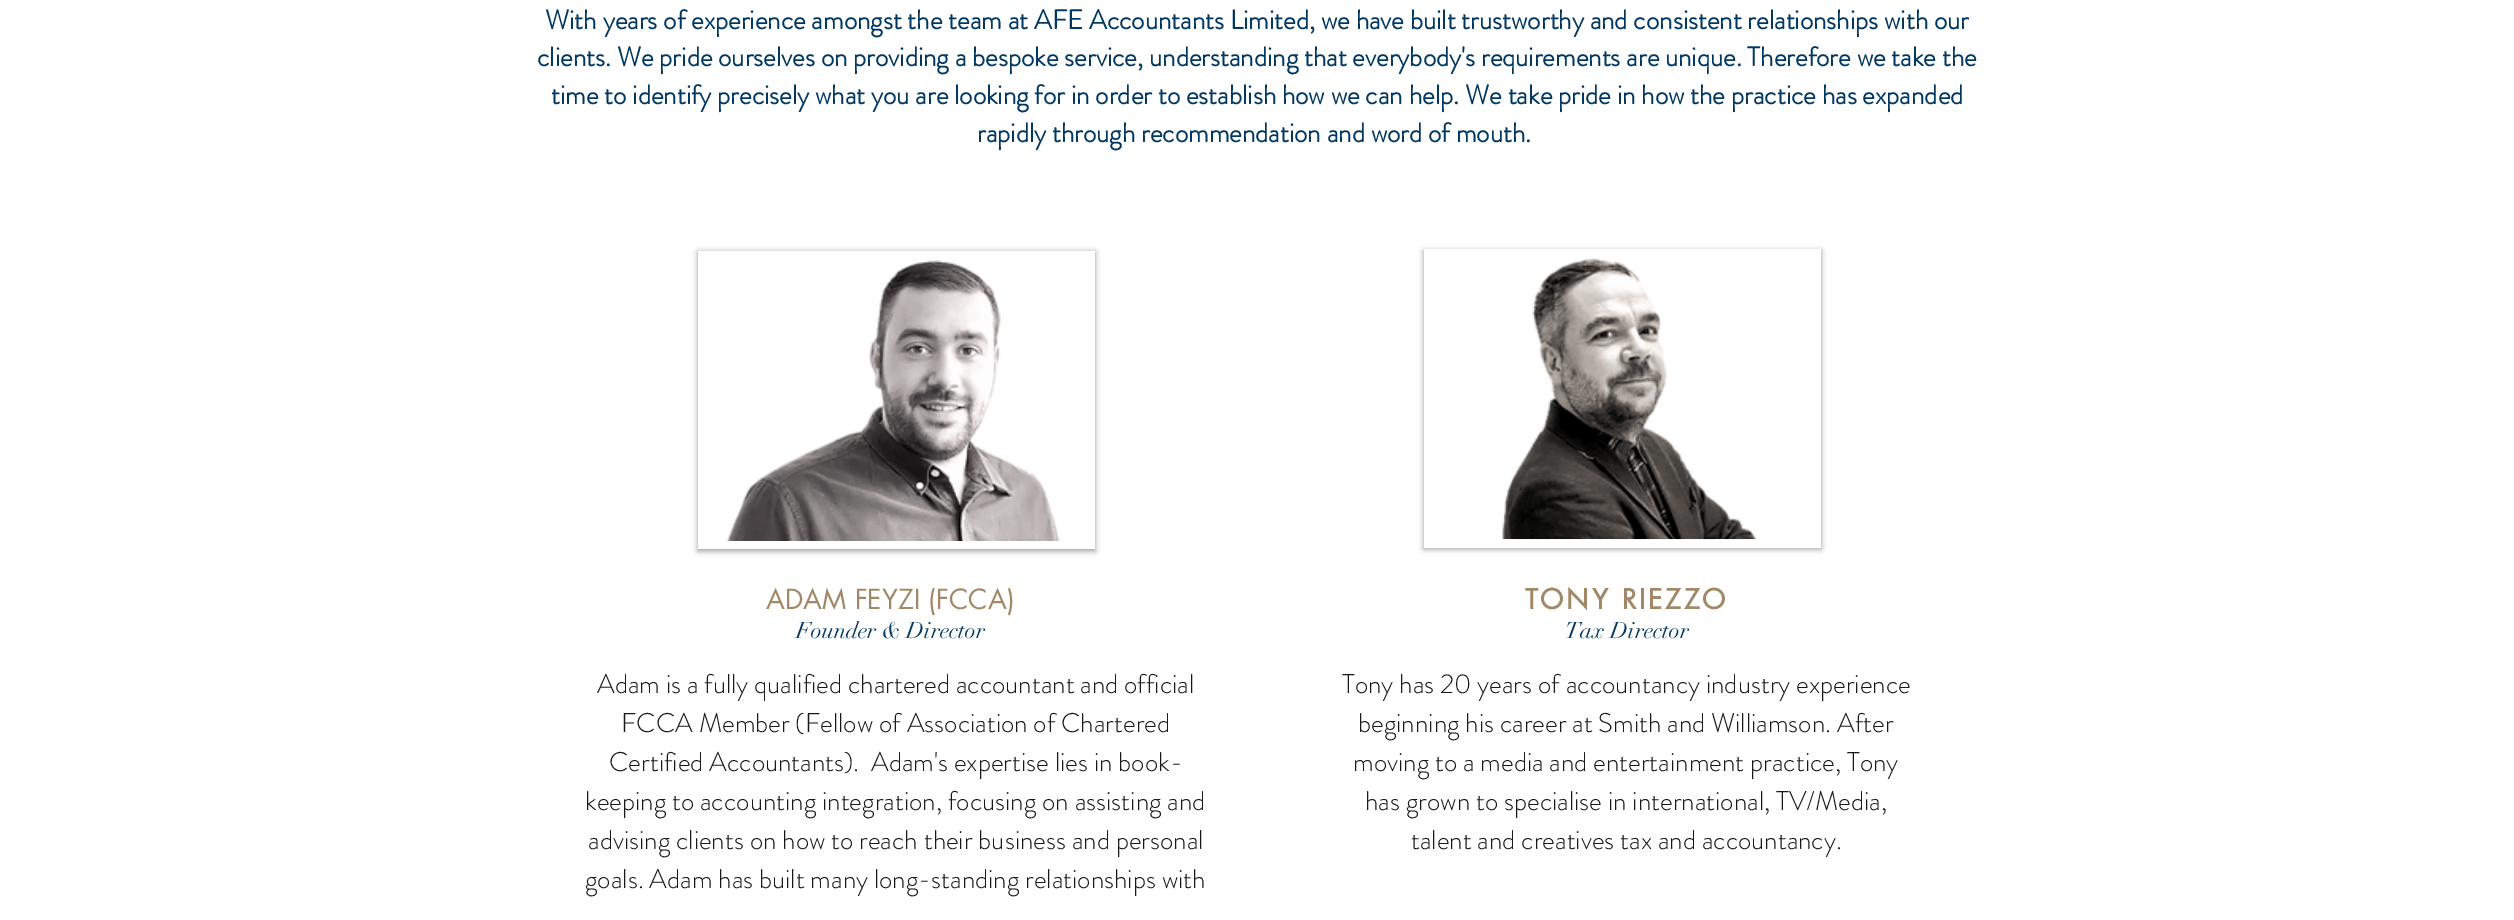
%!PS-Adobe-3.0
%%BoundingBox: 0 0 2514 920
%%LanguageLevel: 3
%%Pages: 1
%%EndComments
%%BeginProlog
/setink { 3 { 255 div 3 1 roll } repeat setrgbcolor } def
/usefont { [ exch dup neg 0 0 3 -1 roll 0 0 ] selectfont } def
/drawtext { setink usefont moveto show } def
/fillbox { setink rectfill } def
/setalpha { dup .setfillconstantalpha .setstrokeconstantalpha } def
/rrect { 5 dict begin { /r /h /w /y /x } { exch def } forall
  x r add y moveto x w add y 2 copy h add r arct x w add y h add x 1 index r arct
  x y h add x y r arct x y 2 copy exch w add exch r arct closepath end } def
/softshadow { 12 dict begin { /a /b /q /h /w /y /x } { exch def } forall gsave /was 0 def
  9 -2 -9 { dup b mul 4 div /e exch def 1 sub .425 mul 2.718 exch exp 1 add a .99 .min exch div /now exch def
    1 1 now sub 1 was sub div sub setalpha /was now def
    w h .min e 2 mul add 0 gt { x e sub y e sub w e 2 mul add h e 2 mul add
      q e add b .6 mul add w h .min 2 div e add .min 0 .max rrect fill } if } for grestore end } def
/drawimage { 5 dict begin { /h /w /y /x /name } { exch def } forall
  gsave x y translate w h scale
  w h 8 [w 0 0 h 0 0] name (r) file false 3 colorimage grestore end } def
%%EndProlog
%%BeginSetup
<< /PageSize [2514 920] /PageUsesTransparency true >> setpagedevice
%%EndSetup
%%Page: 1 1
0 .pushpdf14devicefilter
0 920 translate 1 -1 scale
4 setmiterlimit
0 0 2514 920 255 255 255 fillbox
(With years of experience amongst the team at AFE Accountants Limited, we have built trustworthy and consistent relationships with our) 545 29 /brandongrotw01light-Bold 27 0 56 98 drawtext
(clients. We pride ourselves on providing a bespoke service, understanding that everybody's requirements are unique. Therefore we take the) 537 66 /brandongrotw01light-Bold 27 0 56 98 drawtext
(time to identify precisely what you are looking for in order to establish how we can help. We take pride in how the practice has expanded) 551 104 /brandongrotw01light-Bold 27 0 56 98 drawtext
(rapidly through recommendation and word of mouth.) 977 142 /brandongrotw01light-Bold 27 0 56 98 drawtext
gsave
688 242 moveto 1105 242 lineto 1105 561 lineto 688 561 lineto closepath 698 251 moveto 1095 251 lineto 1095 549 lineto 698 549 lineto closepath eoclip newpath
0 0 0 setink
698 252 397 299 0 3 0.4 softshadow
grestore
(assets/img1.rgb) 727 260 333 281 drawimage
0 0 0 setink
1424 251 397 298 0 3 0.4 softshadow
1424 249 397 299 255 255 255 fillbox
(assets/img2.rgb) 1502 257 255 283 drawimage
(ADAM FEYZI \(FCCA\)) 766 609 /futura-Regular 27 161 137 103 drawtext
(Founder & Director) 796 638 /didot-Regular 22.5 0 56 98 drawtext
/futura-Bold 27 usefont
161 137 103 setink
1525 609 moveto 2.75 0 (TONY RIEZZO) ashow
(Tax Director) 1565 638 /didot-Regular 22.5 0 56 98 drawtext
(Adam is a fully qualified chartered accountant and official) 597 693 /brandongrotw01light-Light 27 24 24 24 drawtext
(FCCA Member \(Fellow of Association of Chartered) 621 732 /brandongrotw01light-Light 27 24 24 24 drawtext
(Certified Accountants\).  Adam's expertise lies in book-) 609 771 /brandongrotw01light-Light 27 24 24 24 drawtext
(keeping to accounting integration, focusing on assisting and) 585 810 /brandongrotw01light-Light 27 24 24 24 drawtext
(advising clients on how to reach their business and personal) 588 849 /brandongrotw01light-Light 27 24 24 24 drawtext
(goals. Adam has built many long-standing relationships with) 585 888 /brandongrotw01light-Light 27 24 24 24 drawtext
(Tony has 20 years of accountancy industry experience) 1342 693 /brandongrotw01light-Light 27 24 24 24 drawtext
(beginning his career at Smith and Williamson. After) 1358 732 /brandongrotw01light-Light 27 24 24 24 drawtext
(moving to a media and entertainment practice, Tony) 1353 771 /brandongrotw01light-Light 27 24 24 24 drawtext
(has grown to specialise in international, TV/Media,) 1365 810 /brandongrotw01light-Light 27 24 24 24 drawtext
(talent and creatives tax and accountancy.) 1411 849 /brandongrotw01light-Light 27 24 24 24 drawtext
.poppdf14devicefilter showpage
%%EOF
